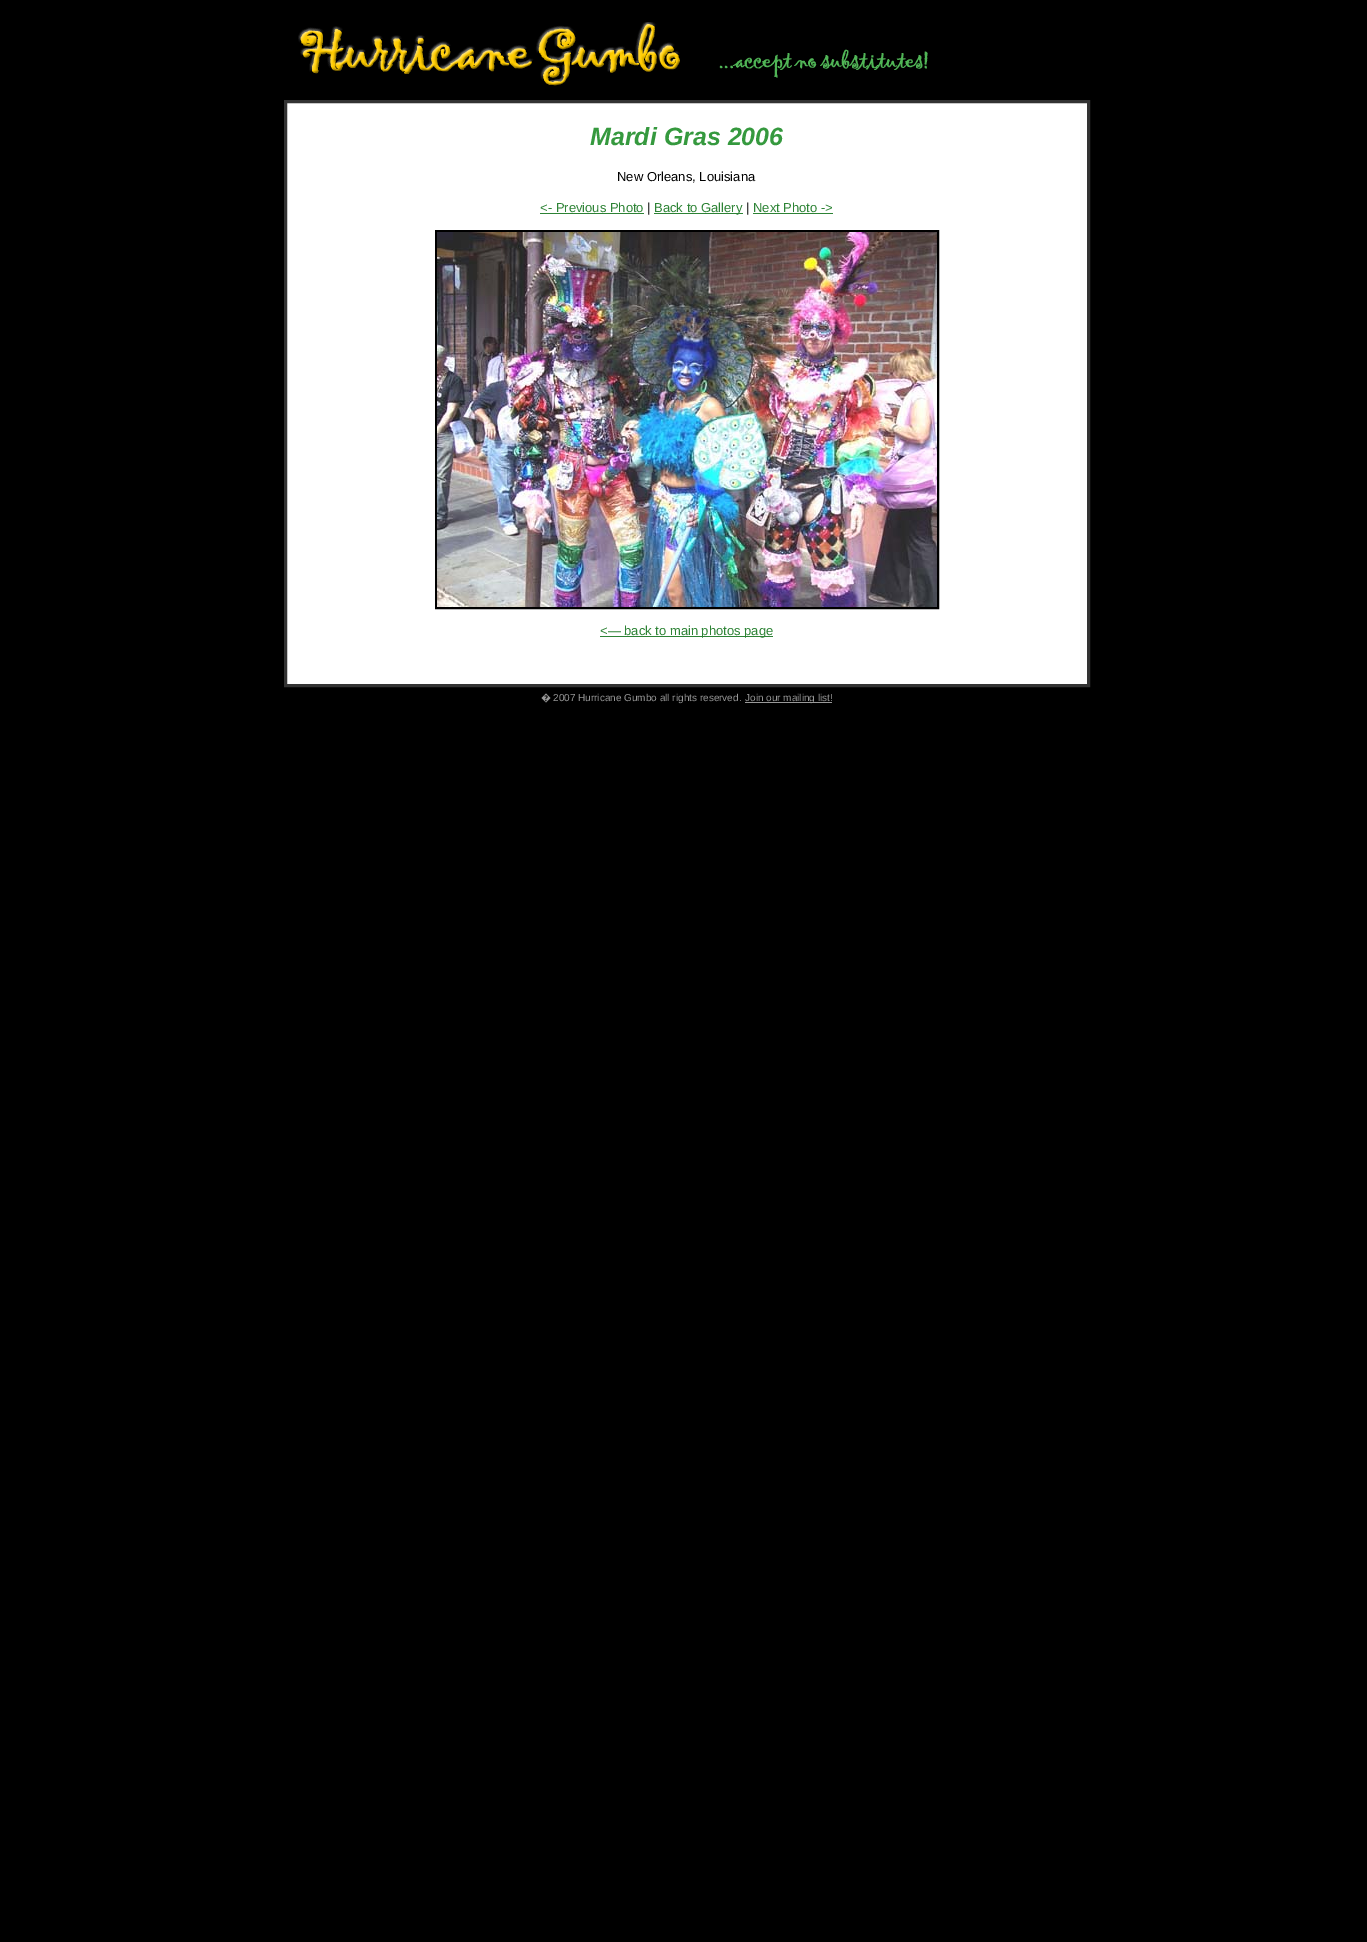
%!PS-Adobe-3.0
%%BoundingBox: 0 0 1367 1942
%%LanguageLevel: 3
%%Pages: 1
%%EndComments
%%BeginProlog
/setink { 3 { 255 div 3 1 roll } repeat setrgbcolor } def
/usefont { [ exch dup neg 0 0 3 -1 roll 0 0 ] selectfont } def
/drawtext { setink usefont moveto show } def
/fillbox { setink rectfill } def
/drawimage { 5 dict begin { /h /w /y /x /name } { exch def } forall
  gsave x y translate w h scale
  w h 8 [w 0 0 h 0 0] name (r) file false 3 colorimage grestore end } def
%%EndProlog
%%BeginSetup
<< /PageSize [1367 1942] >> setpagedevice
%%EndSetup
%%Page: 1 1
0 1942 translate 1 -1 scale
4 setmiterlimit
0 0 1367 1942 0 0 0 fillbox
(assets/img1.rgb) 298 22 382 64 drawimage
(assets/img2.rgb) 719 49 209 29 drawimage
255 255 255 setink
285.5 101.5 moveto 1088.5 101.5 lineto 1088.5 685.5 lineto 285.5 685.5 lineto closepath gsave fill grestore
51 51 51 setink
3 setlinewidth
stroke
(Mardi Gras 2006) 590 145 /LiberationSans-BoldItalic 25 53 153 62 drawtext
(New Orleans, Louisiana) 617 181 /LiberationSans-Regular 13 0 0 0 drawtext
(<- Previous Photo) 540 212 /LiberationSans-Regular 13 45 131 53 drawtext
540 213 104 1 45 131 53 fillbox
(|) 647 212 /LiberationSans-Regular 13 0 0 0 drawtext
654 213 89 1 45 131 53 fillbox
(Back to Gallery) 654 212 /LiberationSans-Regular 13 45 131 53 drawtext
(|) 746 212 /LiberationSans-Regular 13 0 0 0 drawtext
(Next Photo ->) 753 212 /LiberationSans-Regular 13 45 131 53 drawtext
753 213 80 1 45 131 53 fillbox
0 0 0 setink
2 setlinewidth
436 231 502 377 rectstroke
(assets/img3.rgb) 437 232 500 375 drawimage
600 636 173 1 45 131 53 fillbox
(<— back to main photos page) 600 635 /LiberationSans-Regular 13 45 131 53 drawtext
(�) 541 701 /NotoSans-Regular 10 153 153 153 drawtext
(2007 Hurricane Gumbo all rights reserved.) 553 701 /LiberationSans-Regular 10 153 153 153 drawtext
745 702 87 1 153 153 153 fillbox
(Join our mailing list!) 745 701 /LiberationSans-Regular 10 153 153 153 drawtext
showpage
%%EOF
